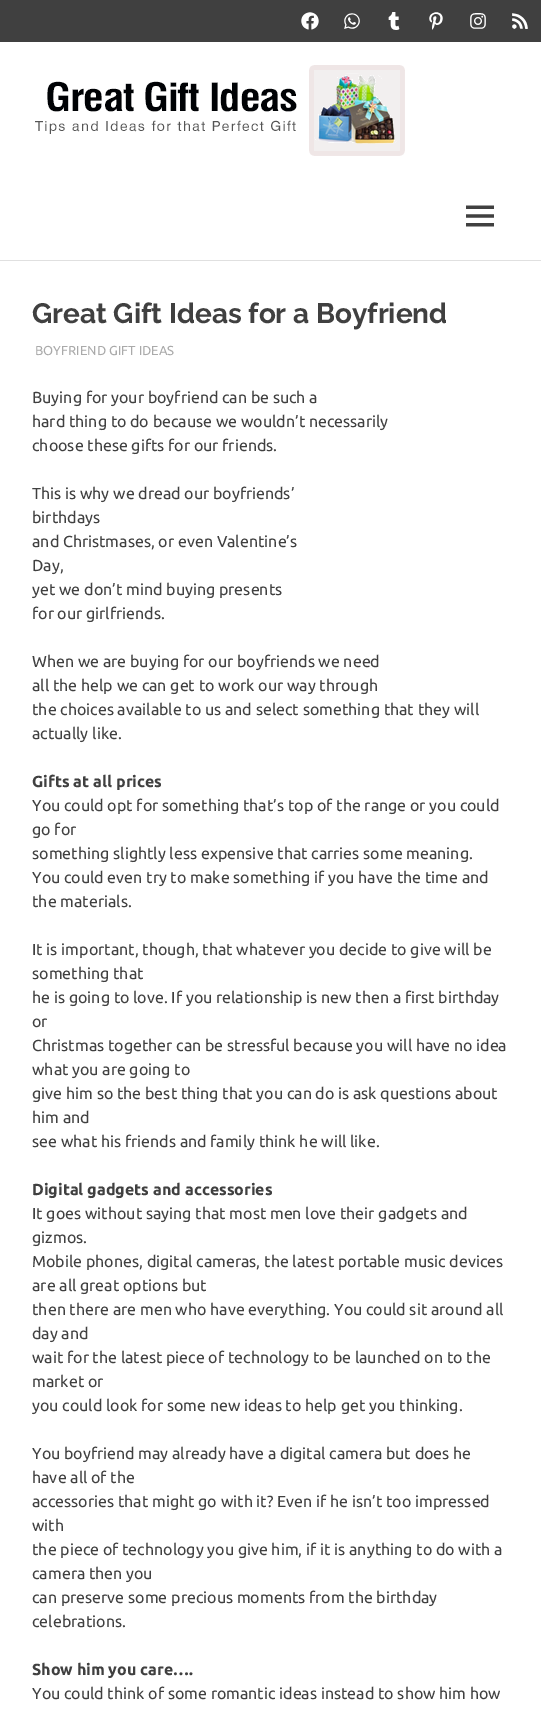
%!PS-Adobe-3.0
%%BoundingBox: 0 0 541 1713
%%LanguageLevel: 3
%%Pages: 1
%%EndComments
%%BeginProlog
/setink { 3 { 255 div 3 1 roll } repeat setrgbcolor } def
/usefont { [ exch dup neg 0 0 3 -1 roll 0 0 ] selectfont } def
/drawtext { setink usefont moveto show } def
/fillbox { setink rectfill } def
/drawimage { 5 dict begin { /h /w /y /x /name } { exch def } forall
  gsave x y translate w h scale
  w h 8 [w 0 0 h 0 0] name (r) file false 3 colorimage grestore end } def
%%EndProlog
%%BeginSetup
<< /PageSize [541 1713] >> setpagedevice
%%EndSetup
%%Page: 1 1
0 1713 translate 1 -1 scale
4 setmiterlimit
0 0 541 1713 255 255 255 fillbox
0 0 541 42 64 64 64 fillbox
(assets/img1.rgb) 301 12 18 18 drawimage
(assets/img2.rgb) 344 13 16 16 drawimage
(assets/img3.rgb) 388 12 12 18 drawimage
(assets/img4.rgb) 429 12 14 18 drawimage
(assets/img5.rgb) 470 13 16 16 drawimage
(assets/img6.rgb) 512 13 16 16 drawimage
0 260 541 1 224 224 224 fillbox
(assets/img7.rgb) 35 65 370 91 drawimage
(assets/img8.rgb) 466 205 28 22 drawimage
(Great Gift Ideas for a Boyfriend) 32 323 /Raleway-Bold 28 64 64 64 drawtext
(BOYFRIEND GIFT IDEAS) 35 355 /Ubuntu-Regular 13 170 170 170 drawtext
(Buying for your boyfriend can be such a) 32 403 /Ubuntu-Regular 16 64 64 64 drawtext
(hard thing to do because we wouldn’t necessarily) 32 427 /Ubuntu-Regular 16 64 64 64 drawtext
(choose these gifts for our friends.) 32 451 /Ubuntu-Regular 16 64 64 64 drawtext
(This is why we dread our boyfriends’) 32 499 /Ubuntu-Regular 16 64 64 64 drawtext
(birthdays) 32 523 /Ubuntu-Regular 16 64 64 64 drawtext
(and Christmases, or even Valentine’s) 32 547 /Ubuntu-Regular 16 64 64 64 drawtext
(Day,) 32 571 /Ubuntu-Regular 16 64 64 64 drawtext
(yet we don’t mind buying presents) 32 595 /Ubuntu-Regular 16 64 64 64 drawtext
(for our girlfriends.) 32 619 /Ubuntu-Regular 16 64 64 64 drawtext
(When we are buying for our boyfriends we need) 32 667 /Ubuntu-Regular 16 64 64 64 drawtext
(all the help we can get to work our way through) 32 691 /Ubuntu-Regular 16 64 64 64 drawtext
(the choices available to us and select something that they will) 32 715 /Ubuntu-Regular 16 64 64 64 drawtext
(actually like.) 32 739 /Ubuntu-Regular 16 64 64 64 drawtext
(Gifts at all prices) 32 787 /Ubuntu-Bold 16 64 64 64 drawtext
(You could opt for something that’s top of the range or you could) 32 811 /Ubuntu-Regular 16 64 64 64 drawtext
(go for) 32 835 /Ubuntu-Regular 16 64 64 64 drawtext
(something slightly less expensive that carries some meaning.) 32 859 /Ubuntu-Regular 16 64 64 64 drawtext
(You could even try to make something if you have the time and) 32 883 /Ubuntu-Regular 16 64 64 64 drawtext
(the materials.) 32 907 /Ubuntu-Regular 16 64 64 64 drawtext
(It is important, though, that whatever you decide to give will be) 32 955 /Ubuntu-Regular 16 64 64 64 drawtext
(something that) 32 979 /Ubuntu-Regular 16 64 64 64 drawtext
(he is going to love. If you relationship is new then a first birthday) 32 1003 /Ubuntu-Regular 16 64 64 64 drawtext
(or) 32 1027 /Ubuntu-Regular 16 64 64 64 drawtext
(Christmas together can be stressful because you will have no idea) 32 1051 /Ubuntu-Regular 16 64 64 64 drawtext
(what you are going to) 32 1075 /Ubuntu-Regular 16 64 64 64 drawtext
(give him so the best thing that you can do is ask questions about) 32 1099 /Ubuntu-Regular 16 64 64 64 drawtext
(him and) 32 1123 /Ubuntu-Regular 16 64 64 64 drawtext
(see what his friends and family think he will like.) 32 1147 /Ubuntu-Regular 16 64 64 64 drawtext
(Digital gadgets and accessories) 32 1195 /Ubuntu-Bold 16 64 64 64 drawtext
(It goes without saying that most men love their gadgets and) 32 1219 /Ubuntu-Regular 16 64 64 64 drawtext
(gizmos.) 32 1243 /Ubuntu-Regular 16 64 64 64 drawtext
(Mobile phones, digital cameras, the latest portable music devices) 32 1267 /Ubuntu-Regular 16 64 64 64 drawtext
(are all great options but) 32 1291 /Ubuntu-Regular 16 64 64 64 drawtext
(then there are men who have everything. You could sit around all) 32 1315 /Ubuntu-Regular 16 64 64 64 drawtext
(day and) 32 1339 /Ubuntu-Regular 16 64 64 64 drawtext
(wait for the latest piece of technology to be launched on to the) 32 1363 /Ubuntu-Regular 16 64 64 64 drawtext
(market or) 32 1387 /Ubuntu-Regular 16 64 64 64 drawtext
(you could look for some new ideas to help get you thinking.) 32 1411 /Ubuntu-Regular 16 64 64 64 drawtext
(You boyfriend may already have a digital camera but does he) 32 1459 /Ubuntu-Regular 16 64 64 64 drawtext
(have all of the) 32 1483 /Ubuntu-Regular 16 64 64 64 drawtext
(accessories that might go with it? Even if he isn’t too impressed) 32 1507 /Ubuntu-Regular 16 64 64 64 drawtext
(with) 32 1531 /Ubuntu-Regular 16 64 64 64 drawtext
(the piece of technology you give him, if it is anything to do with a) 32 1555 /Ubuntu-Regular 16 64 64 64 drawtext
(camera then you) 32 1579 /Ubuntu-Regular 16 64 64 64 drawtext
(can preserve some precious moments from the birthday) 32 1603 /Ubuntu-Regular 16 64 64 64 drawtext
(celebrations.) 32 1627 /Ubuntu-Regular 16 64 64 64 drawtext
(Show him you care….) 32 1675 /Ubuntu-Bold 16 64 64 64 drawtext
(You could think of some romantic ideas instead to show him how) 32 1699 /Ubuntu-Regular 16 64 64 64 drawtext
showpage
%%EOF
